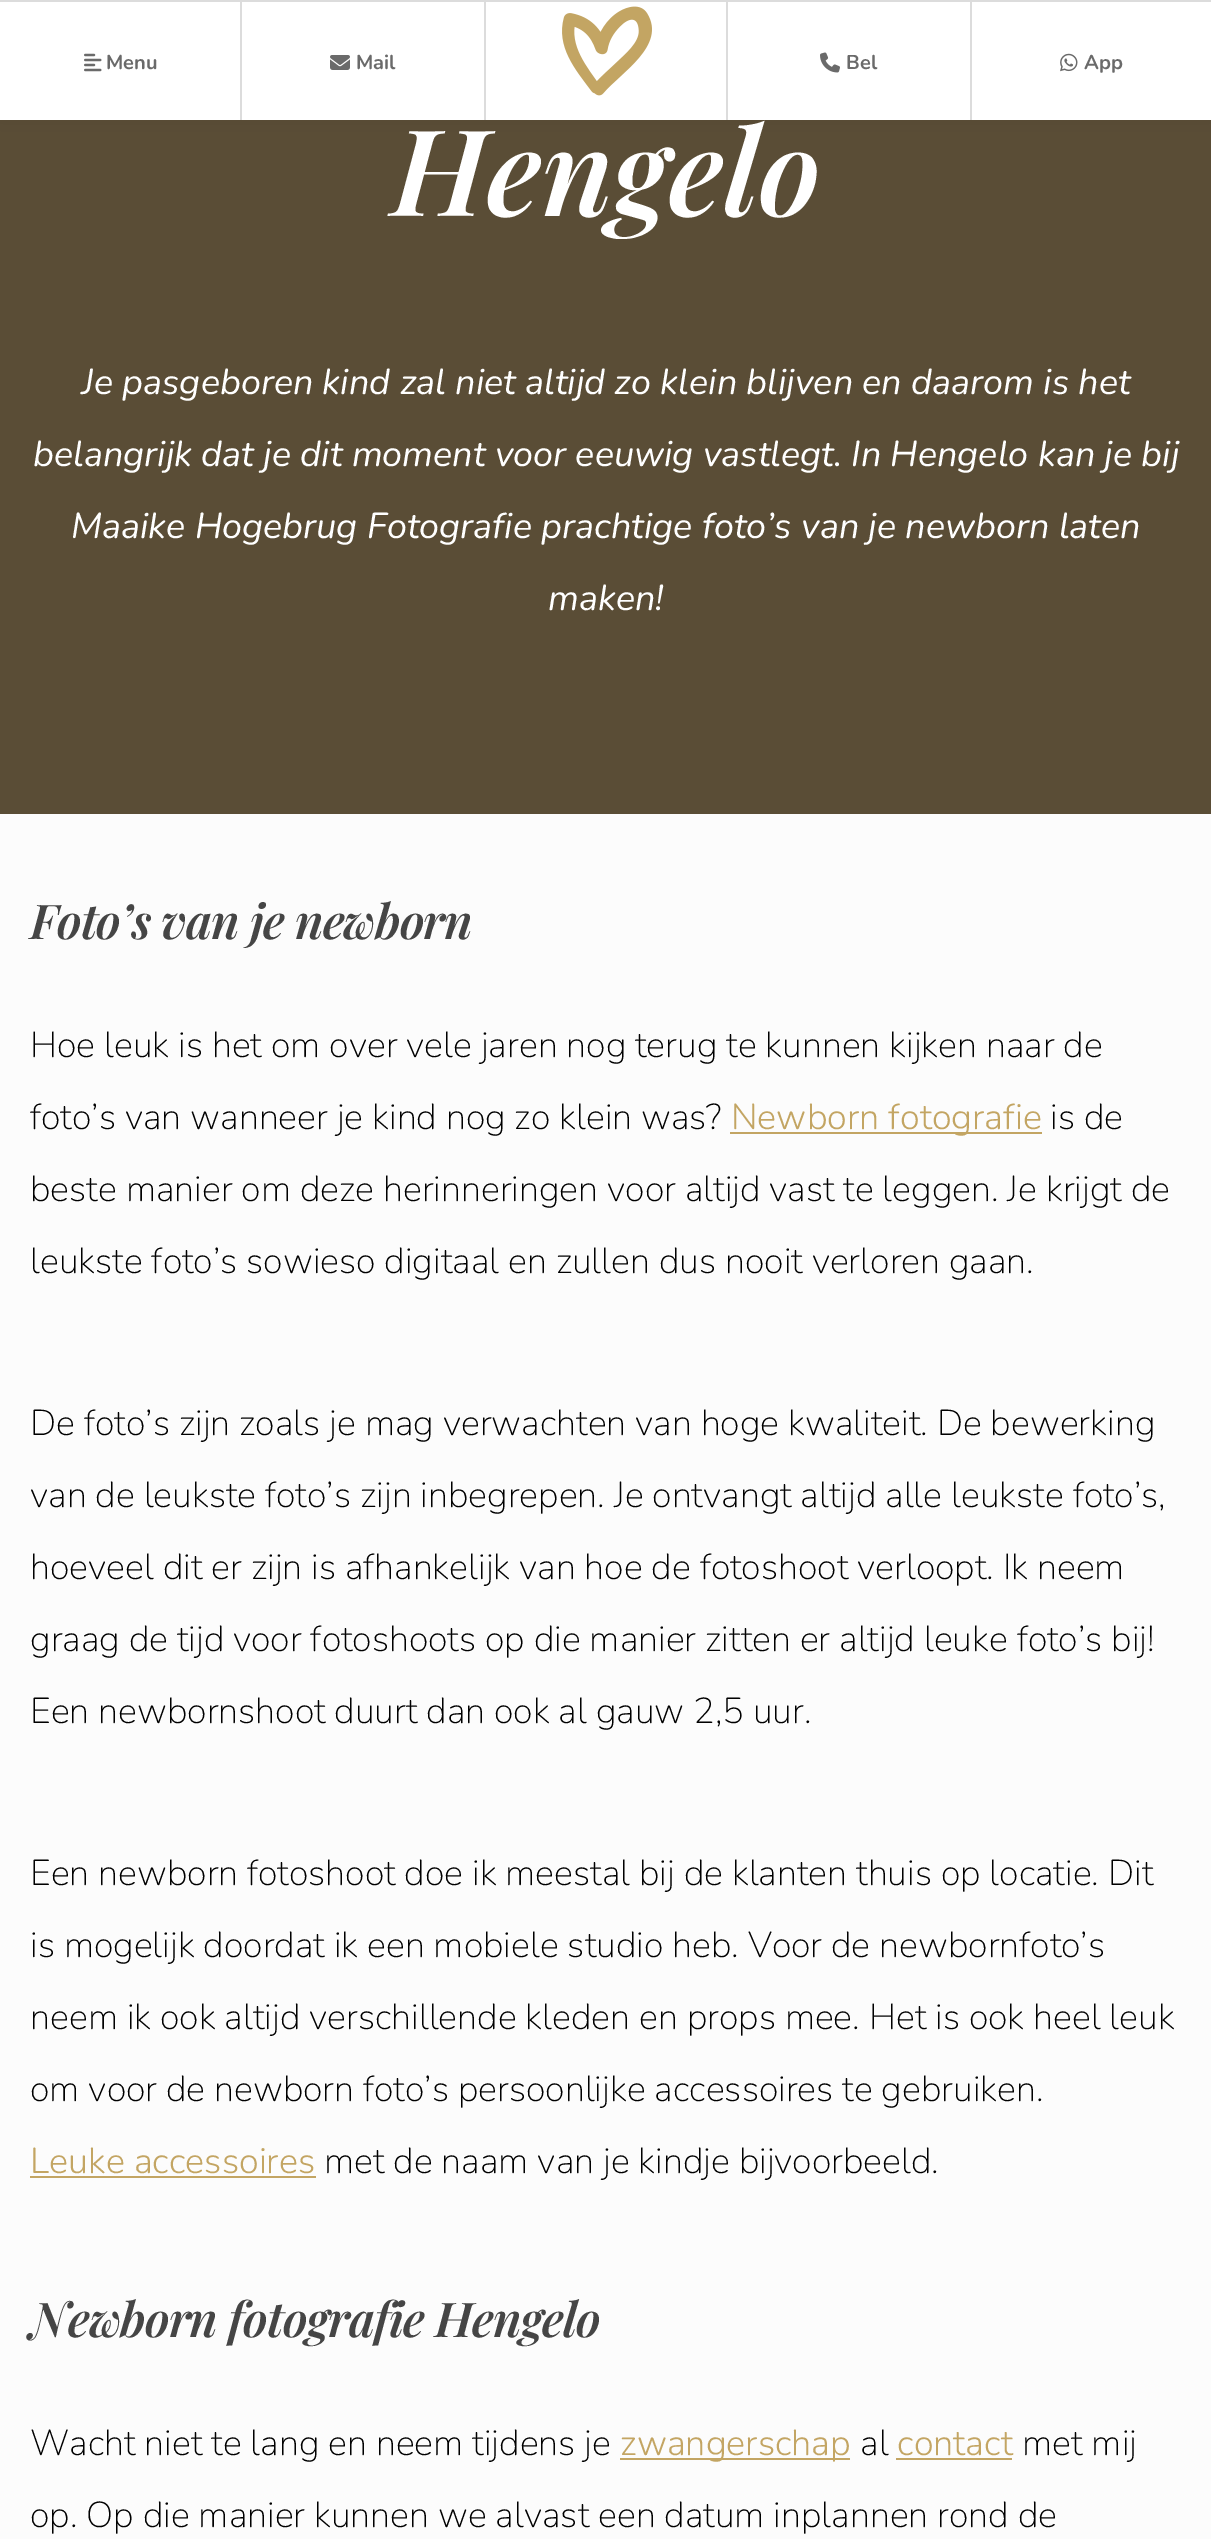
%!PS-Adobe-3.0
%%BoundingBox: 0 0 1211 2539
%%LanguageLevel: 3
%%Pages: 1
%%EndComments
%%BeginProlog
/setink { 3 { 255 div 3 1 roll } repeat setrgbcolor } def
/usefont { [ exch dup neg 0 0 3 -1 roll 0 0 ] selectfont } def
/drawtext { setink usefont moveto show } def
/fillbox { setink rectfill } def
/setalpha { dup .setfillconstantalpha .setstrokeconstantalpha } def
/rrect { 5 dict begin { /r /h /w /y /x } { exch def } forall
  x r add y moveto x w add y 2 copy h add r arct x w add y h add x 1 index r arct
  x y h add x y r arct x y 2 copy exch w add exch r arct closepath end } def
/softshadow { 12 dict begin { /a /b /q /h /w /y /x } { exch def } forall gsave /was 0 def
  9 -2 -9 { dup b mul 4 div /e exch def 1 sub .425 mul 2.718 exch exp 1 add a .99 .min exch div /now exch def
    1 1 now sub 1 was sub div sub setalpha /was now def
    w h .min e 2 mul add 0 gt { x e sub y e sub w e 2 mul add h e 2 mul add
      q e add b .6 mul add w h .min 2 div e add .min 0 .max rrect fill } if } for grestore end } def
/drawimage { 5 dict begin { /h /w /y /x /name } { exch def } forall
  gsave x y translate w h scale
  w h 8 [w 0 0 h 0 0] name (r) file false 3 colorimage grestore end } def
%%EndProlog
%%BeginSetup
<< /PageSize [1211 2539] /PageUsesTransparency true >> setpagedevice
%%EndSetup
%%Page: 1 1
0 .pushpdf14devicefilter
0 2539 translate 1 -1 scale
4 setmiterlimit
0 0 1211 2539 252 252 252 fillbox
0 120 1211 694 90 77 54 fillbox
0 0 0 setink
0 -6 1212 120 0 15 0.1 softshadow
0 2 1211 118 255 255 255 fillbox
0 0 1211 2 220 220 220 fillbox
240 0 2 120 220 220 220 fillbox
(assets/img1.rgb) 84 53 18 19 drawimage
(Menu) 106 69 /Nunito-Bold 20 106 106 106 drawtext
484 0 2 120 220 220 220 fillbox
(assets/img2.rgb) 330 55 20 15 drawimage
(Mail) 356 69 /Nunito-Bold 20 106 106 106 drawtext
726 0 2 120 220 220 220 fillbox
(assets/img3.rgb) 562 6 90 90 drawimage
970 0 2 120 220 220 220 fillbox
(assets/img4.rgb) 820 52 20 21 drawimage
(Bel) 846 69 /Nunito-Bold 20 106 106 106 drawtext
(assets/img5.rgb) 1060 53 18 19 drawimage
(App) 1084 69 /Nunito-Bold 20 106 106 106 drawtext
(Hengelo) 392 216 /PlayfairDisplay-SemiBoldItalic 120 255 255 255 drawtext
(Je pasgeboren kind zal niet altijd zo klein blijven en daarom is het) 82 394 /Nunito-Italic 36 255 255 255 drawtext
(belangrijk dat je dit moment voor eeuwig vastlegt. In Hengelo kan je bij) 33 466 /Nunito-Italic 36 255 255 255 drawtext
(Maaike Hogebrug Fotografie prachtige foto’s van je newborn laten) 71 538 /Nunito-Italic 36 255 255 255 drawtext
(maken!) 548 610 /Nunito-Italic 36 255 255 255 drawtext
/PlayfairDisplay-SemiBoldItalic 48 usefont
69 69 69 setink
30 939 moveto -1 0 (Foto’s van je newborn) ashow
(Hoe leuk is het om over vele jaren nog terug te kunnen kijken naar de) 30 1057 /Nunito-ExtraLight 36 0 0 0 drawtext
(foto’s van wanneer je kind nog zo klein was?) 30 1129 /Nunito-ExtraLight 36 0 0 0 drawtext
730 1132 312 2 195 165 99 fillbox
(Newborn fotografie) 731 1129 /Nunito-Light 36 195 165 99 drawtext
(is de) 1050 1129 /Nunito-ExtraLight 36 0 0 0 drawtext
(beste manier om deze herinneringen voor altijd vast te leggen. Je krijgt de) 30 1201 /Nunito-ExtraLight 36 0 0 0 drawtext
(leukste foto’s sowieso digitaal en zullen dus nooit verloren gaan.) 30 1273 /Nunito-ExtraLight 36 0 0 0 drawtext
(De foto’s zijn zoals je mag verwachten van hoge kwaliteit. De bewerking) 30 1435 /Nunito-ExtraLight 36 0 0 0 drawtext
(van de leukste foto’s zijn inbegrepen. Je ontvangt altijd alle leukste foto’s,) 30 1507 /Nunito-ExtraLight 36 0 0 0 drawtext
(hoeveel dit er zijn is afhankelijk van hoe de fotoshoot verloopt. Ik neem) 30 1579 /Nunito-ExtraLight 36 0 0 0 drawtext
(graag de tijd voor fotoshoots op die manier zitten er altijd leuke foto’s bij!) 30 1651 /Nunito-ExtraLight 36 0 0 0 drawtext
(Een newbornshoot duurt dan ook al gauw 2,5 uur.) 30 1723 /Nunito-ExtraLight 36 0 0 0 drawtext
(Een newborn fotoshoot doe ik meestal bij de klanten thuis op locatie. Dit) 30 1885 /Nunito-ExtraLight 36 0 0 0 drawtext
(is mogelijk doordat ik een mobiele studio heb. Voor de newbornfoto’s) 30 1957 /Nunito-ExtraLight 36 0 0 0 drawtext
(neem ik ook altijd verschillende kleden en props mee. Het is ook heel leuk) 30 2029 /Nunito-ExtraLight 36 0 0 0 drawtext
(om voor de newborn foto’s persoonlijke accessoires te gebruiken.) 30 2101 /Nunito-ExtraLight 36 0 0 0 drawtext
(Leuke accessoires) 30 2173 /Nunito-Light 36 195 165 99 drawtext
30 2176 286 2 195 165 99 fillbox
(met de naam van je kindje bijvoorbeeld.) 324 2173 /Nunito-ExtraLight 36 0 0 0 drawtext
/PlayfairDisplay-SemiBoldItalic 48 usefont
69 69 69 setink
30 2337 moveto -1 0 (Newborn fotografie Hengelo) ashow
(Wacht niet te lang en neem tijdens je) 30 2455 /Nunito-ExtraLight 36 0 0 0 drawtext
620 2458 230 2 195 165 99 fillbox
(zwangerschap) 620 2455 /Nunito-Light 36 195 165 99 drawtext
(al) 860 2455 /Nunito-ExtraLight 36 0 0 0 drawtext
(contact) 897 2455 /Nunito-Light 36 195 165 99 drawtext
896 2458 116 2 195 165 99 fillbox
(met mij) 1022 2455 /Nunito-ExtraLight 36 0 0 0 drawtext
(op. Op die manier kunnen we alvast een datum inplannen rond de) 30 2527 /Nunito-ExtraLight 36 0 0 0 drawtext
.poppdf14devicefilter showpage
%%EOF
